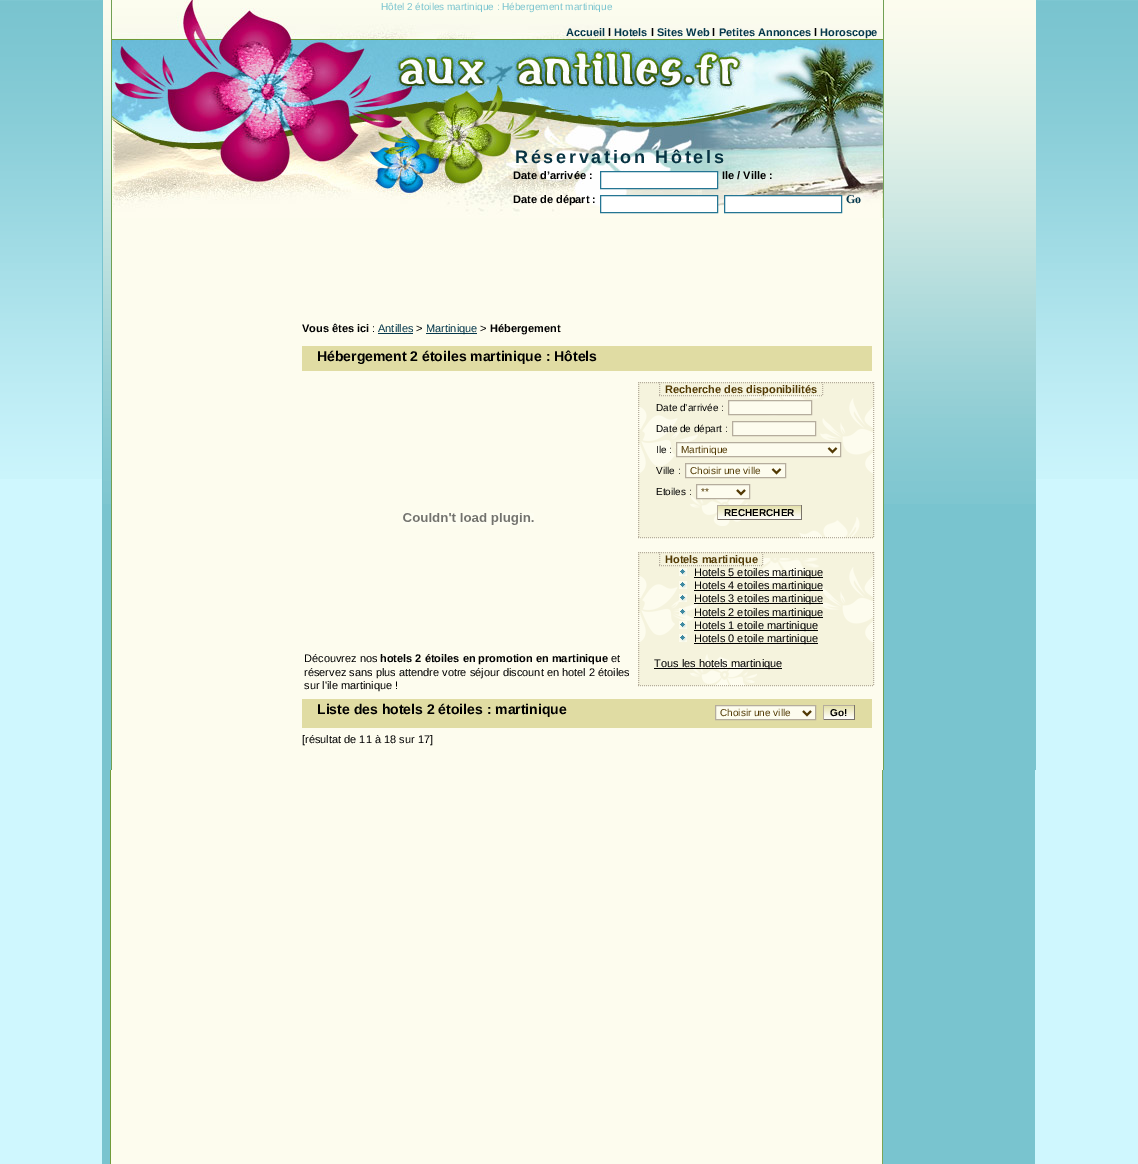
%!PS-Adobe-3.0
%%BoundingBox: 0 0 1138 1164
%%LanguageLevel: 3
%%Pages: 1
%%EndComments
%%BeginProlog
/setink { 3 { 255 div 3 1 roll } repeat setrgbcolor } def
/usefont { [ exch dup neg 0 0 3 -1 roll 0 0 ] selectfont } def
/drawtext { setink usefont moveto show } def
/fillbox { setink rectfill } def
/drawimage { 5 dict begin { /h /w /y /x /name } { exch def } forall
  gsave x y translate w h scale
  w h 8 [w 0 0 h 0 0] name (r) file false 3 colorimage grestore end } def
%%EndProlog
%%BeginSetup
<< /PageSize [1138 1164] >> setpagedevice
%%EndSetup
%%Page: 1 1
0 1164 translate 1 -1 scale
4 setmiterlimit
0 0 1138 1164 207 247 254 fillbox
(assets/img1.rgb) 102 0 933 1164 drawimage
(assets/img2.rgb) 0 0 1138 479 drawimage
110 504 926 266 121 196 207 fillbox
(assets/img3.rgb) 103 0 933 504 drawimage
112 218 771 552 253 252 238 fillbox
883 0 1 770 113 160 83 fillbox
111 0 1 770 113 160 83 fillbox
(assets/img4.rgb) 112 0 771 218 drawimage
(Hôtel 2 étoiles martinique : Hébergement martinique) 381 10 /LiberationSans-Regular 10 122 196 207 drawtext
(Accueil) 566 36 /LiberationSans-Bold 11 4 55 75 drawtext
(l) 608 36 /LiberationSans-Bold 11 0 0 0 drawtext
(Hotels) 614 36 /LiberationSans-Bold 11 4 55 75 drawtext
(l) 651 36 /LiberationSans-Bold 11 0 0 0 drawtext
(Sites Web) 657 36 /LiberationSans-Bold 11 4 55 75 drawtext
(l) 712 36 /LiberationSans-Bold 11 0 0 0 drawtext
(Petites Annonces) 719 36 /LiberationSans-Bold 11 4 55 75 drawtext
(l) 814 36 /LiberationSans-Bold 11 0 0 0 drawtext
(Horoscope) 820 36 /LiberationSans-Bold 11 4 55 75 drawtext
/LiberationSans-Bold 18 usefont
7 51 66 setink
515 163 moveto 2.7 0 (Réservation Hôtels) ashow
(Date d’arrivée :) 513 179 /LiberationSans-Bold 11 0 0 0 drawtext
608 172 109 16 255 255 255 fillbox
36 117 147 setink
600.5 171.5 117 17 rectstroke
(Ile / Ville :) 722 179 /LiberationSans-Bold 11 0 0 0 drawtext
(Date de départ :) 513 203 /LiberationSans-Bold 11 0 0 0 drawtext
255 255 255 setink
600.5 195.5 moveto 717.5 195.5 lineto 717.5 212.5 lineto 600.5 212.5 lineto closepath gsave fill grestore
36 117 147 setink
stroke
255 255 255 setink
724.5 195.5 moveto 841.5 195.5 lineto 841.5 212.5 lineto 724.5 212.5 lineto closepath gsave fill grestore
36 117 147 setink
stroke
(Go) 846 203 /LiberationSerif-Bold 12 4 55 75 drawtext
(Vous êtes ici) 302 332 /LiberationSans-Bold 11 0 0 0 drawtext
(:) 372 332 /LiberationSans-Regular 11 0 0 0 drawtext
(Antilles) 378 332 /LiberationSans-Regular 11 4 55 75 drawtext
378 333 35 1 4 55 75 fillbox
(>) 416 332 /LiberationSans-Regular 11 0 0 0 drawtext
426 333 51 1 4 55 75 fillbox
(Martinique) 426 332 /LiberationSans-Regular 11 4 55 75 drawtext
(>) 480 332 /LiberationSans-Regular 11 0 0 0 drawtext
(Hébergement) 490 332 /LiberationSans-Bold 11 0 0 0 drawtext
302 346 570 25 224 220 163 fillbox
(Hébergement 2 étoiles martinique : Hôtels) 317 361 /LiberationSans-Bold 14 0 0 0 drawtext
(assets/img5.rgb) 403 513 131 12 drawimage
(Découvrez nos) 304 662 /LiberationSans-Regular 11 0 0 0 drawtext
(hotels 2 étoiles en promotion en martinique) 380 662 /LiberationSans-Bold 11 0 0 0 drawtext
(et) 611 662 /LiberationSans-Regular 11 0 0 0 drawtext
(réservez sans plus attendre votre séjour discount en hotel 2 étoiles) 304 676 /LiberationSans-Regular 11 0 0 0 drawtext
(sur l'ile martinique !) 304 689 /LiberationSans-Regular 11 0 0 0 drawtext
638 382 236 7 245 243 221 fillbox
(assets/img6.rgb) 638 389 236 149 drawimage
181 173 157 setink
[1 1] 0 setdash
638 382.5 moveto 874 382.5 lineto stroke
873.5 382 moveto 873.5 538 lineto stroke
638 537.5 moveto 874 537.5 lineto stroke
638.5 382 moveto 638.5 538 lineto stroke
660 382 163 14 245 243 221 fillbox
181 173 157 setink
659 382.5 moveto 823 382.5 lineto stroke
822.5 382 moveto 822.5 396 lineto stroke
659 395.5 moveto 823 395.5 lineto stroke
659.5 382 moveto 659.5 396 lineto stroke
(Recherche des disponibilités) 665 393 /LiberationSans-Bold 11 81 57 3 drawtext
(Date d’arrivée :) 656 411 /LiberationSans-Regular 10 0 0 0 drawtext
253 252 238 setink
728.5 400.5 moveto 811.5 400.5 lineto 811.5 414.5 lineto 728.5 414.5 lineto closepath gsave fill grestore
181 173 157 setink
[] 0 setdash
stroke
(Date de départ :) 656 432 /LiberationSans-Regular 10 0 0 0 drawtext
253 252 238 setink
732.5 421.5 moveto 815.5 421.5 lineto 815.5 435.5 lineto 732.5 435.5 lineto closepath gsave fill grestore
181 173 157 setink
stroke
(Ile :) 656 453 /LiberationSans-Regular 10 0 0 0 drawtext
253 252 238 setink
676.5 442.5 moveto 840.5 442.5 lineto 840.5 456.5 lineto 676.5 456.5 lineto closepath gsave fill grestore
181 173 157 setink
stroke
81 57 3 setink
2 setlinewidth
828.5 448 moveto 832.5 452 lineto 836.5 448 lineto stroke
(Martinique) 681 453 /LiberationSans-Regular 10 81 57 3 drawtext
(Ville :) 656 474 /LiberationSans-Regular 10 0 0 0 drawtext
253 252 238 setink
685.5 463.5 moveto 785.5 463.5 lineto 785.5 477.5 lineto 685.5 477.5 lineto closepath gsave fill grestore
181 173 157 setink
1 setlinewidth
stroke
81 57 3 setink
2 setlinewidth
772.5 469 moveto 776.5 473 lineto 780.5 469 lineto stroke
(Choisir une ville) 690 474 /LiberationSans-Regular 10 81 57 3 drawtext
(Etoiles :) 656 495 /LiberationSans-Regular 10 0 0 0 drawtext
253 252 238 setink
696.5 484.5 moveto 749.5 484.5 lineto 749.5 498.5 lineto 696.5 498.5 lineto closepath gsave fill grestore
181 173 157 setink
1 setlinewidth
stroke
81 57 3 setink
2 setlinewidth
737 490 moveto 741 494 lineto 745 490 lineto stroke
(**) 701 495 /LiberationSans-Regular 10 81 57 3 drawtext
(assets/img7.rgb) 718 506 83 13 drawimage
717 505 85 1 181 173 157 fillbox
801 505 1 15 121 115 105 fillbox
717 519 85 1 121 115 105 fillbox
717 505 1 15 181 173 157 fillbox
(RECHERCHER) 724 516 /LiberationSans-Bold 10 0 0 0 drawtext
638 552 236 6 245 243 221 fillbox
(assets/img8.rgb) 638 558 236 128 drawimage
181 173 157 setink
1 setlinewidth
[1 1] 0 setdash
638 552.5 moveto 874 552.5 lineto stroke
873.5 552 moveto 873.5 686 lineto stroke
638 685.5 moveto 874 685.5 lineto stroke
638.5 552 moveto 638.5 686 lineto stroke
660 552 103 14 245 243 221 fillbox
181 173 157 setink
659 552.5 moveto 763 552.5 lineto stroke
762.5 552 moveto 762.5 566 lineto stroke
659 565.5 moveto 763 565.5 lineto stroke
659.5 552 moveto 659.5 566 lineto stroke
(Hotels martinique) 665 563 /LiberationSans-Bold 11 81 57 3 drawtext
(assets/img9.rgb) 679 568 8 8 drawimage
694 577 129 1 0 0 0 fillbox
(Hotels 5 etoiles martinique) 694 576 /LiberationSans-Regular 11 0 0 0 drawtext
(assets/img9.rgb) 679 581 8 8 drawimage
694 590 129 1 0 0 0 fillbox
(Hotels 4 etoiles martinique) 694 589 /LiberationSans-Regular 11 0 0 0 drawtext
(assets/img9.rgb) 679 594 8 8 drawimage
694 603 129 1 0 0 0 fillbox
(Hotels 3 etoiles martinique) 694 602 /LiberationSans-Regular 11 0 0 0 drawtext
(assets/img9.rgb) 679 608 8 8 drawimage
694 617 129 1 0 0 0 fillbox
(Hotels 2 etoiles martinique) 694 616 /LiberationSans-Regular 11 0 0 0 drawtext
(assets/img9.rgb) 679 621 8 8 drawimage
694 630 124 1 0 0 0 fillbox
(Hotels 1 etoile martinique) 694 629 /LiberationSans-Regular 11 0 0 0 drawtext
(assets/img9.rgb) 679 634 8 8 drawimage
694 643 124 1 0 0 0 fillbox
(Hotels 0 etoile martinique) 694 642 /LiberationSans-Regular 11 0 0 0 drawtext
654 668 128 1 0 0 0 fillbox
(Tous les hotels martinique) 654 667 /LiberationSans-Regular 11 0 0 0 drawtext
302 699 570 29 224 220 163 fillbox
(Liste des hotels 2 étoiles : martinique) 317 714 /LiberationSans-Bold 14 0 0 0 drawtext
253 252 238 setink
715.5 705.5 moveto 815.5 705.5 lineto 815.5 719.5 lineto 715.5 719.5 lineto closepath gsave fill grestore
181 173 157 setink
[] 0 setdash
stroke
81 57 3 setink
2 setlinewidth
803 711 moveto 807 715 lineto 811 711 lineto stroke
(Choisir une ville) 720 716 /LiberationSans-Regular 10 81 57 3 drawtext
(assets/img10.rgb) 824 706 30 13 drawimage
823 705 32 1 181 173 157 fillbox
854 705 1 15 121 115 105 fillbox
823 719 32 1 121 115 105 fillbox
823 705 1 15 181 173 157 fillbox
(Go!) 830 716 /LiberationSans-Bold 10 0 0 0 drawtext
([résultat de 11 à 18 sur 17]) 302 743 /LiberationSans-Regular 11 0 0 0 drawtext
showpage
%%EOF
